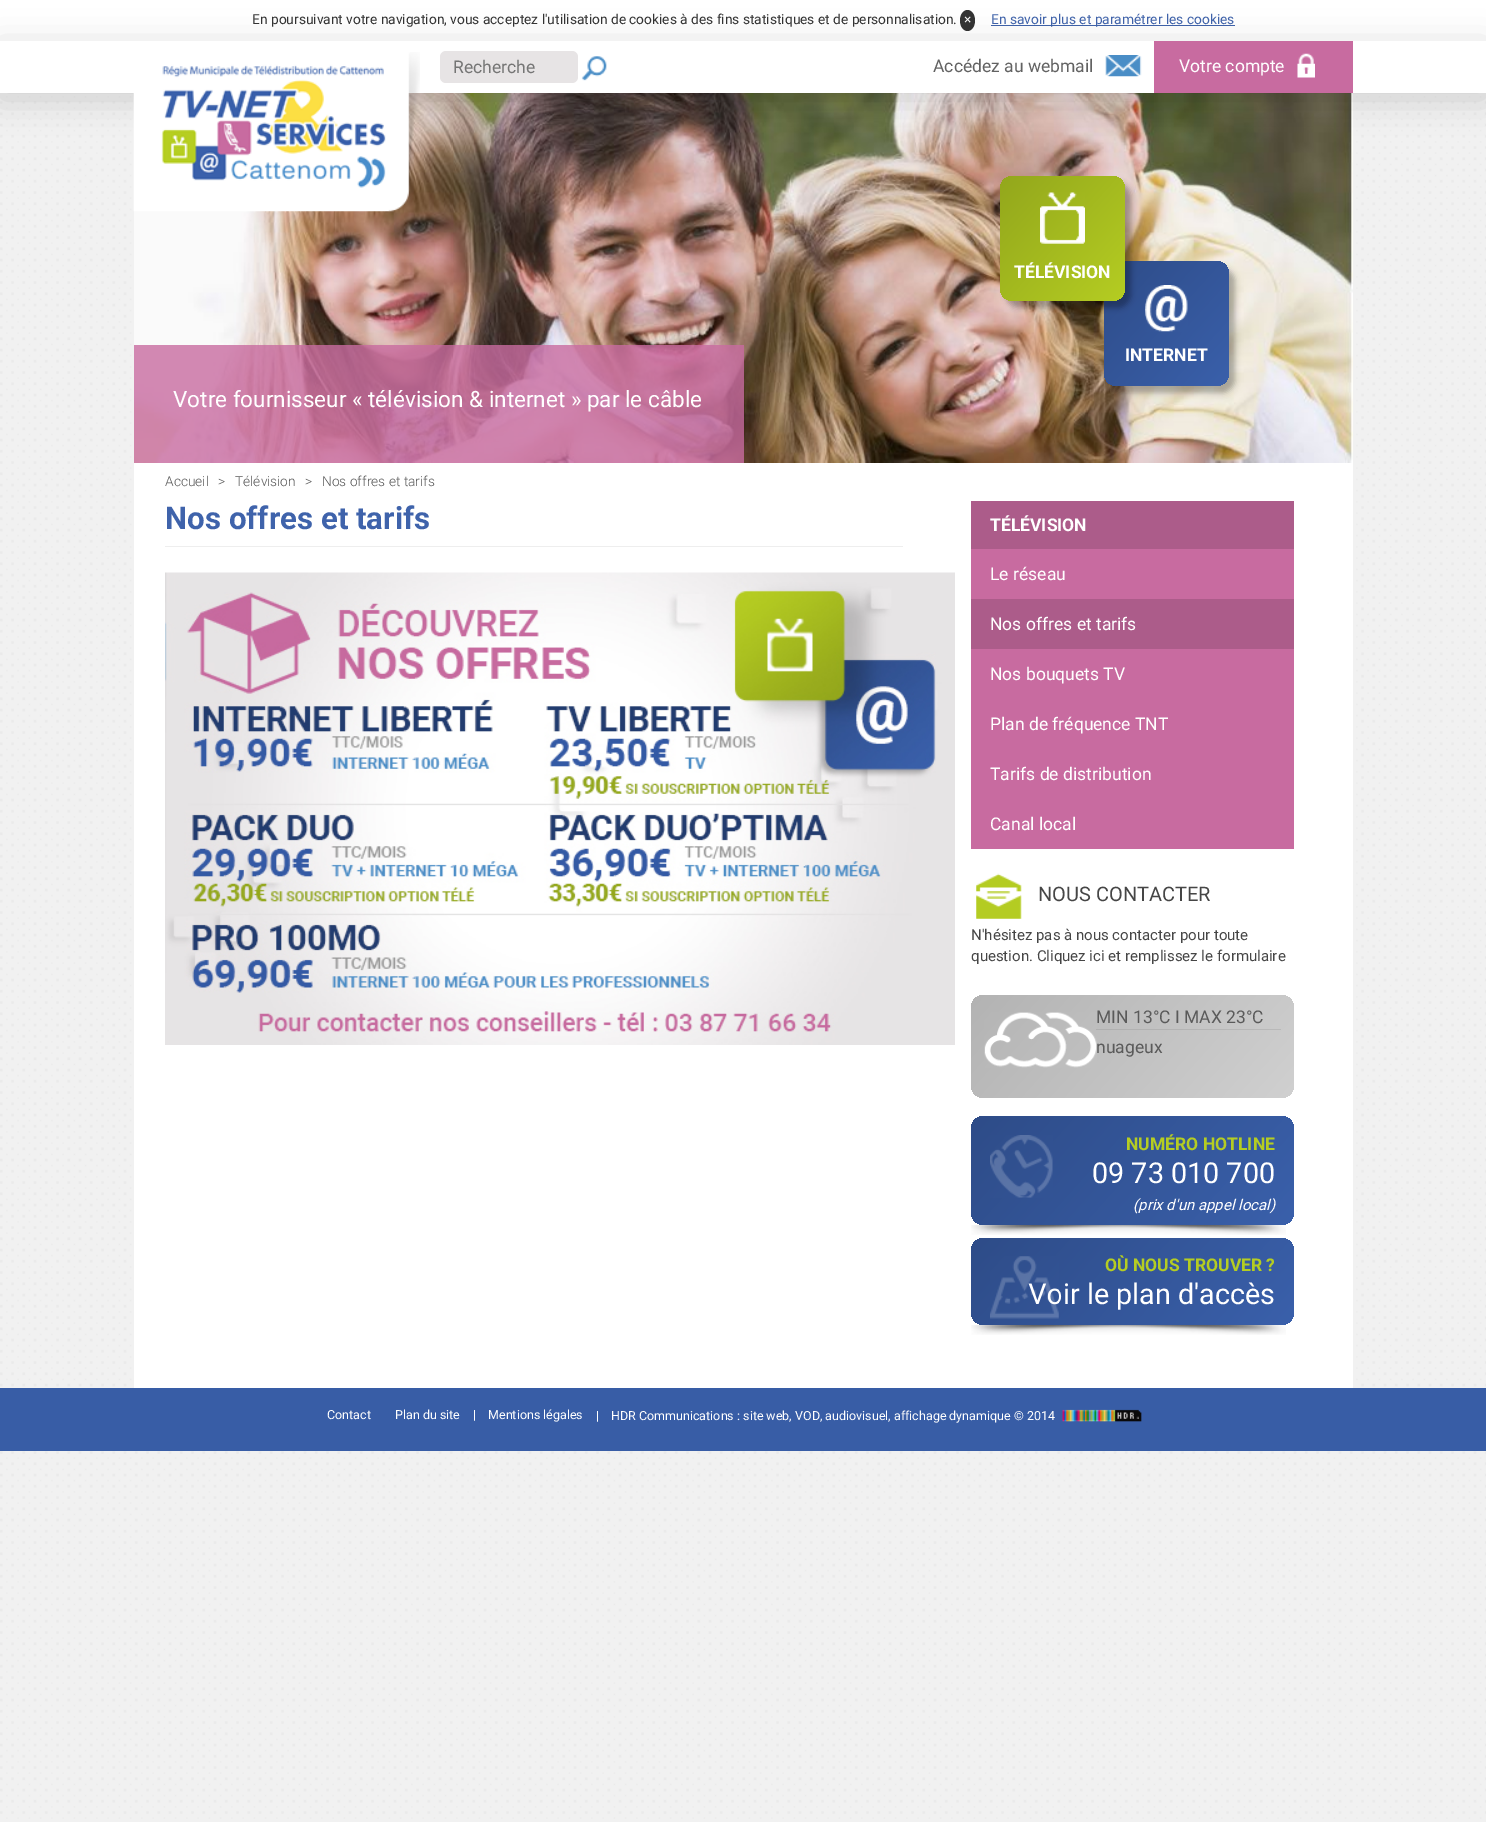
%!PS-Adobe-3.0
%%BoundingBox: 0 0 1486 1822
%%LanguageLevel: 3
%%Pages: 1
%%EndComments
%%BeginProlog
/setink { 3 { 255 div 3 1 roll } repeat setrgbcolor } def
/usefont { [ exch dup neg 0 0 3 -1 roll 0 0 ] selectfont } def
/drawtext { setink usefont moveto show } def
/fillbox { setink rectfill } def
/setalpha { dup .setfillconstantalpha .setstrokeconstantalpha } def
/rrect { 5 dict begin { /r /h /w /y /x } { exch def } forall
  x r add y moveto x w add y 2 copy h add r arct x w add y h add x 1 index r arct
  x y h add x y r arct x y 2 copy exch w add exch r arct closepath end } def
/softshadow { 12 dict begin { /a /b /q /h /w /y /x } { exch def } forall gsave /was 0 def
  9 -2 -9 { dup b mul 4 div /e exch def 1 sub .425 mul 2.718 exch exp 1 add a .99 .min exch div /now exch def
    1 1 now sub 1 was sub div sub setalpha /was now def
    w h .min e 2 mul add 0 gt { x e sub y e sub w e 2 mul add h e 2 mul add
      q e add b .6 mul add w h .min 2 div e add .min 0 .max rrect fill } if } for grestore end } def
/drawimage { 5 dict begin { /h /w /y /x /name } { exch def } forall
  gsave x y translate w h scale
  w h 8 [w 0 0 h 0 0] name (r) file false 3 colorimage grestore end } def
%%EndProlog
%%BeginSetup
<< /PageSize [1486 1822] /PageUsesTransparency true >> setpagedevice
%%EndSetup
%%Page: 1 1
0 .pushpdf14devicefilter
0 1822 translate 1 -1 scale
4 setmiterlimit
0 0 1486 1822 241 241 241 fillbox
(assets/img1.rgb) 0 93 1486 1726 drawimage
0 0 1486 41 255 255 255 fillbox
(En poursuivant votre navigation, vous acceptez l'utilisation de cookies à des fins statistiques et de personnalisation.) 252 24 /Roboto-Regular 13.75 51 51 51 drawtext
967.5 10 moveto 971.5 10 975 14.5 975 20.5 curveto 975 26.5 971.5 31 967.5 31 curveto 963.5 31 960 26.5 960 20.5 curveto 960 14.5 963.5 10 967.5 10 curveto closepath fill
(×) 964 24 /Roboto-Regular 13.75 255 255 255 drawtext
991 25 244 1 63 99 171 fillbox
(En savoir plus et paramétrer les cookies) 991 24 /Roboto-Regular 13.75 63 99 171 drawtext
(assets/img8.rgb) 134 93 1219 370 drawimage
0 0 0 setink
0 46 1486 52 0 17 0.15 softshadow
0 41 1486 52 255 255 255 fillbox
(assets/img2.rgb) 133 52 287 160 drawimage
231 228 229 setink
440 51 138 32 6 rrect fill
(Recherche) 453 73 /Roboto-Regular 17.5 117 117 117 drawtext
(assets/img3.rgb) 581 56 26 25 drawimage
(Accédez au webmail) 933 72 /Roboto-Regular 17.5 98 98 98 drawtext
(assets/img4.rgb) 1105 55 37 22 drawimage
1154 41 199 52 200 107 160 fillbox
(Votre compte) 1179 72 /Roboto-Regular 17.5 255 255 255 drawtext
(assets/img5.rgb) 1297 53 18 25 drawimage
0 0 0 setink
1110 268 125 125 13 3 0.3 softshadow
gsave 1104 261 125 125 13 rrect clip newpath
<< /ShadingType 2 /ColorSpace /DeviceRGB /Coords [1101 265 1232 383] /Extend [true true] /Function << /FunctionType 2 /Domain [0 1] /C0 [0.18 0.298 0.533] /C1 [0.227 0.376 0.671] /N 1 >> >> shfill grestore
1006 183 125 125 13 3 0.3 softshadow
gsave 1000 176 125 125 13 rrect clip newpath
<< /ShadingType 2 /ColorSpace /DeviceRGB /Coords [997 180 1128 298] /Extend [true true] /Function << /FunctionType 2 /Domain [0 1] /C0 [0.576 0.655 0.11] /C1 [0.71 0.804 0.133] /N 1 >> >> shfill grestore
(assets/img6.rgb) 1040 192 45 52 drawimage
(TÉLÉVISION) 1014 278 /Roboto-Bold 17.5 255 255 255 drawtext
(assets/img7.rgb) 1145 285 43 47 drawimage
(INTERNET) 1125 361 /Roboto-Bold 17.5 255 255 255 drawtext
0.8 setalpha
134 345 610 118 200 107 160 fillbox
1 setalpha
(Votre fournisseur « télévision & internet » par le câble) 173 407 /Roboto-Regular 22.5 255 255 255 drawtext
134 463 1219 925 255 255 255 fillbox
(Accueil) 165 486 /Roboto-Light 13.75 90 90 90 drawtext
(>) 218 486 /Roboto-Light 13.75 90 90 90 drawtext
(Télévision) 235 486 /Roboto-Light 13.75 90 90 90 drawtext
(>) 305 486 /Roboto-Light 13.75 90 90 90 drawtext
(Nos offres et tarifs) 322 486 /Roboto-Light 13.75 90 90 90 drawtext
165 546 738 1 238 238 238 fillbox
(Nos offres et tarifs) 165 529 /Roboto-Bold 31.25 63 99 171 drawtext
(assets/img9.rgb) 165 572 790 473 drawimage
971 501 323 48 172 92 138 fillbox
(TÉLÉVISION) 990 531 /Roboto-Bold 17.5 255 255 255 drawtext
971 549 323 50 200 107 160 fillbox
(Le réseau) 990 580 /Roboto-Regular 17.5 255 255 255 drawtext
971 599 323 50 172 92 138 fillbox
(Nos offres et tarifs) 990 630 /Roboto-Regular 17.5 255 255 255 drawtext
971 649 323 200 200 107 160 fillbox
(Nos bouquets TV) 990 680 /Roboto-Regular 17.5 255 255 255 drawtext
(Plan de fréquence TNT) 990 730 /Roboto-Regular 17.5 255 255 255 drawtext
(Tarifs de distribution) 990 780 /Roboto-Regular 17.5 255 255 255 drawtext
(Canal local) 990 830 /Roboto-Regular 17.5 255 255 255 drawtext
(assets/img10.rgb) 976 873 46 46 drawimage
(NOUS CONTACTER) 1038 901 /Roboto-Regular 20 70 70 70 drawtext
(N'hésitez pas à nous contacter pour toute) 971 940 /Roboto-Regular 15 70 70 70 drawtext
(question. Cliquez ici et remplissez le formulaire) 971 961 /Roboto-Regular 15 70 70 70 drawtext
gsave 971 995 323 103 13 rrect clip newpath
<< /ShadingType 2 /ColorSpace /DeviceRGB /Coords [1018 943 1247 1149] /Extend [true true] /Function << /FunctionType 2 /Domain [0 1] /C0 [0.702 0.702 0.702] /C1 [0.816 0.816 0.816] /N 1 >> >> shfill grestore
(assets/img11.rgb) 984 1012 113 56 drawimage
0.15 setalpha
1096 1029 185 1 89 89 89 fillbox
1 setalpha
(MIN 13°C I MAX 23°C) 1096 1023 /Roboto-Regular 17.5 90 90 90 drawtext
(nuageux) 1096 1053 /Roboto-Regular 17.5 90 90 90 drawtext
gsave 971 1116 323 109 13 rrect clip newpath
<< /ShadingType 2 /ColorSpace /DeviceRGB /Coords [1016 1066 1249 1275] /Extend [true true] /Function << /FunctionType 2 /Domain [0 1] /C0 [0.18 0.298 0.533] /C1 [0.227 0.376 0.671] /N 1 >> >> shfill grestore
(assets/img12.rgb) 990 1135 63 63 drawimage
(NUMÉRO HOTLINE) 1126 1150 /Roboto-Bold 17.5 181 205 34 drawtext
(09 73 010 700) 1092 1183 /Roboto-Regular 28.75 255 255 255 drawtext
(\(prix d'un appel local\)) 1133 1210 /Roboto-Italic 15 255 255 255 drawtext
(assets/img13.rgb) 971 1225 315 10 drawimage
gsave 971 1238 323 87 13 rrect clip newpath
<< /ShadingType 2 /ColorSpace /DeviceRGB /Coords [1022 1181 1243 1381] /Extend [true true] /Function << /FunctionType 2 /Domain [0 1] /C0 [0.18 0.298 0.533] /C1 [0.227 0.376 0.671] /N 1 >> >> shfill grestore
(Voir le plan d'accès) 1028 1304 /Roboto-Regular 28.75 255 255 255 drawtext
(assets/img14.rgb) 990 1256 69 63 drawimage
(OÙ NOUS TROUVER ?) 1105 1271 /Roboto-Bold 17.5 181 205 34 drawtext
(assets/img13.rgb) 971 1325 315 10 drawimage
0 1388 1486 63 56 93 166 fillbox
(Contact) 327 1419 /Roboto-Regular 12.5 255 255 255 drawtext
(Plan du site) 395 1419 /Roboto-Regular 12.5 255 255 255 drawtext
(|) 473 1419 /Roboto-Regular 12.5 255 255 255 drawtext
(Mentions légales) 488 1419 /Roboto-Regular 12.5 255 255 255 drawtext
(|) 596 1420 /Roboto-Regular 12.5 255 255 255 drawtext
(HDR Communications : site web, VOD, audiovisuel, affichage dynamique © 2014) 611 1420 /Roboto-Regular 12.5 255 255 255 drawtext
(assets/img15.rgb) 1062 1409 80 13 drawimage
.poppdf14devicefilter showpage
%%EOF
